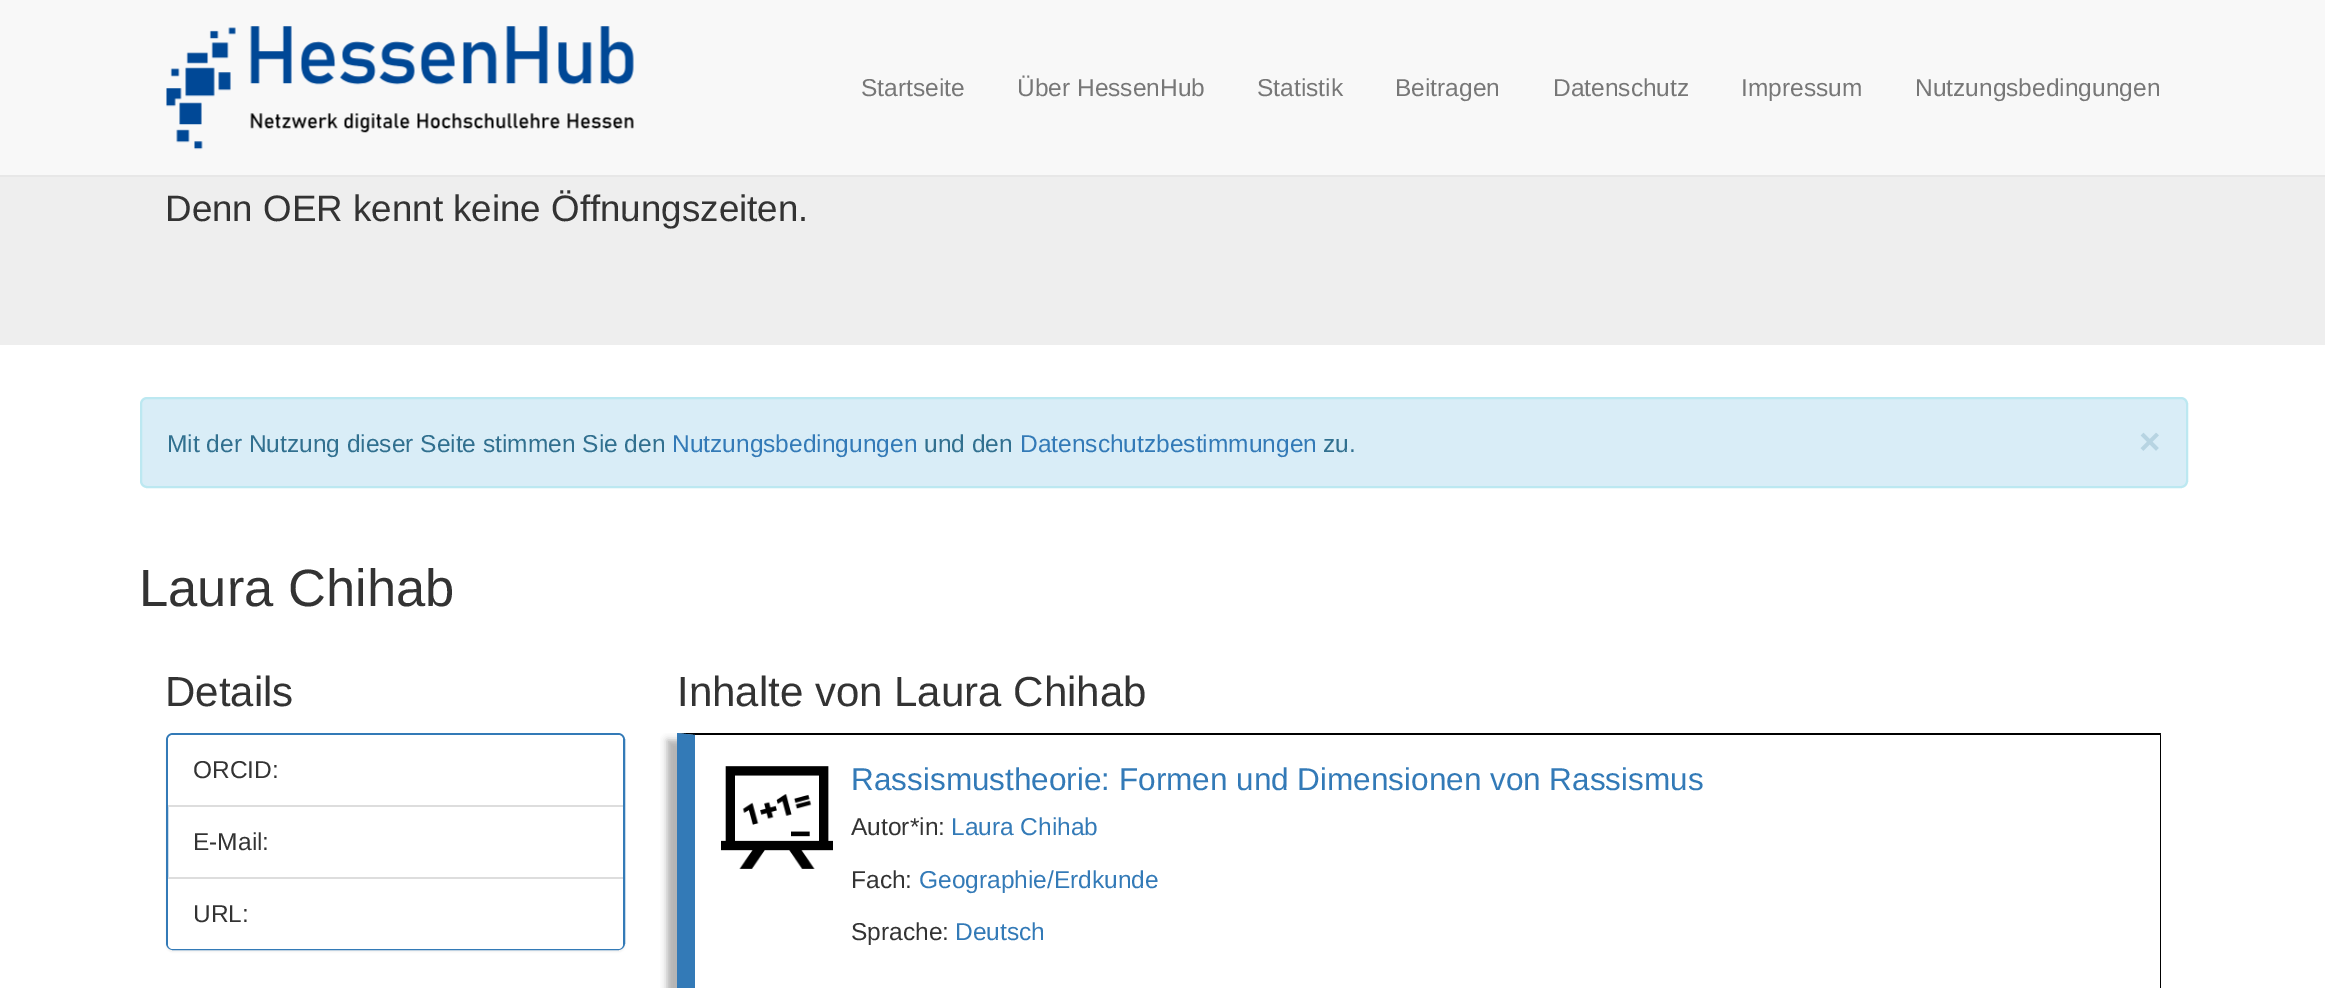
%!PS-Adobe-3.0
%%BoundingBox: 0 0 2325 988
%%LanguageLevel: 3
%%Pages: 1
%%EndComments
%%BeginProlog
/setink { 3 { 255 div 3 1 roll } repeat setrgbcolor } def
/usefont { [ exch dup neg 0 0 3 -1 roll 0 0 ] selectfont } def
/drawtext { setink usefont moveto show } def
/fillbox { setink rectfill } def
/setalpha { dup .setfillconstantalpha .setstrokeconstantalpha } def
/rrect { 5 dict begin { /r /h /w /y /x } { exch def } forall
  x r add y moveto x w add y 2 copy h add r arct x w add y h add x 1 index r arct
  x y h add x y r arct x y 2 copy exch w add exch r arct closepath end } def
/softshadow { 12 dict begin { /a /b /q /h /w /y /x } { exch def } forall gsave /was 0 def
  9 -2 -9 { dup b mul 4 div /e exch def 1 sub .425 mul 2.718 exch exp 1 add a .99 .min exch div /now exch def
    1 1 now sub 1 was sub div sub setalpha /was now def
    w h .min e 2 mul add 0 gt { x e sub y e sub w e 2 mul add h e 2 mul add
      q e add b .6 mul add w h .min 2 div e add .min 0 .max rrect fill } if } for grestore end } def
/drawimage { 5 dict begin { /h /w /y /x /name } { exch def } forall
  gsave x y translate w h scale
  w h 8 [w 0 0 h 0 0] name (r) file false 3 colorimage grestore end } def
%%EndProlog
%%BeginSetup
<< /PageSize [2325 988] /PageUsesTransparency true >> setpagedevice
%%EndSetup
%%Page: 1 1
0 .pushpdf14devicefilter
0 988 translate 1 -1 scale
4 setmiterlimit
0 0 2325 988 255 255 255 fillbox
0 0 2325 175 248 248 248 fillbox
0 175 2325 2 231 231 231 fillbox
(assets/img1.rgb) 166 26 468 124 drawimage
(Startseite) 861 96 /LiberationSans-Regular 24.5 119 119 119 drawtext
(Über HessenHub) 1017 96 /LiberationSans-Regular 24.5 119 119 119 drawtext
(Statistik) 1257 96 /LiberationSans-Regular 24.5 119 119 119 drawtext
(Beitragen) 1395 96 /LiberationSans-Regular 24.5 119 119 119 drawtext
(Datenschutz) 1553 96 /LiberationSans-Regular 24.5 119 119 119 drawtext
(Impressum) 1741 96 /LiberationSans-Regular 24.5 119 119 119 drawtext
(Nutzungsbedingungen) 1915 96 /LiberationSans-Regular 24.5 119 119 119 drawtext
0 177 2325 168 238 238 238 fillbox
(Denn OER kennt keine Öffnungszeiten.) 165 221 /LiberationSans-Regular 36.75 51 51 51 drawtext
217 237 247 setink
141 398 2046 89 6 rrect gsave fill grestore
188 232 241 setink
2 setlinewidth
stroke
(Mit der Nutzung dieser Seite stimmen Sie den) 167 452 /LiberationSans-Regular 24.5 49 112 143 drawtext
(Nutzungsbedingungen) 672 452 /LiberationSans-Regular 24.5 51 122 183 drawtext
(und den) 924 452 /LiberationSans-Regular 24.5 49 112 143 drawtext
(Datenschutzbestimmungen) 1020 452 /LiberationSans-Regular 24.5 51 122 183 drawtext
(zu.) 1323 452 /LiberationSans-Regular 24.5 49 112 143 drawtext
(×) 2139 454 /LiberationSans-Bold 36.75 183 212 226 drawtext
(Laura Chihab) 139 606 /LiberationSans-Regular 52.5 51 51 51 drawtext
(Details) 165 706 /LiberationSans-Regular 42 51 51 51 drawtext
0 0 0 setink
166 735 459 217 7 1 0.05 softshadow
255 255 255 setink
167 734 457 215 6 rrect gsave fill grestore
51 122 183 setink
stroke
255 255 255 setink
173 735 moveto 618 735 lineto 621 735 623 737 623 740 curveto 623 807 lineto 168 807 lineto 168 740 lineto 168 737 170 735 173 735 curveto closepath fill
168 805 455 2 221 221 221 fillbox
(ORCID:) 193 778 /LiberationSans-Regular 24.5 51 51 51 drawtext
(E-Mail:) 193 850 /LiberationSans-Regular 24.5 51 51 51 drawtext
255 255 255 setink
168 877 moveto 623 877 lineto 623 944 lineto 623 947 621 949 618 949 curveto 173 949 lineto 170 949 168 947 168 944 curveto closepath fill
168 877 455 2 221 221 221 fillbox
(URL:) 193 922 /LiberationSans-Regular 24.5 51 51 51 drawtext
(Inhalte von Laura Chihab) 677 706 /LiberationSans-Regular 42 51 51 51 drawtext
gsave
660 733 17 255 rectclip
145 145 145 setink
667 740 1484 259 0 3.5 0.7 softshadow
grestore
0 0 0 setink
677 733 moveto 2161 733 lineto 2160 735 lineto 695 735 lineto closepath fill
2161 733 moveto 2161 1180 lineto 2160 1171 lineto 2160 735 lineto closepath fill
51 122 183 setink
677 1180 moveto 677 733 lineto 695 735 lineto 695 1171 lineto closepath fill
(assets/img2.rgb) 721 766 112 103 drawimage
(Rassismustheorie: Formen und Dimensionen von Rassismus) 851 790 /LiberationSans-Regular 31.5 51 122 183 drawtext
(Autor*in:) 851 835 /LiberationSans-Regular 24.5 51 51 51 drawtext
(Laura Chihab) 951 835 /LiberationSans-Regular 24.5 51 122 183 drawtext
(Fach:) 851 888 /LiberationSans-Regular 24.5 51 51 51 drawtext
(Geographie/Erdkunde) 919 888 /LiberationSans-Regular 24.5 51 122 183 drawtext
(Sprache:) 851 940 /LiberationSans-Regular 24.5 51 51 51 drawtext
(Deutsch) 955 940 /LiberationSans-Regular 24.5 51 122 183 drawtext
.poppdf14devicefilter showpage
%%EOF
